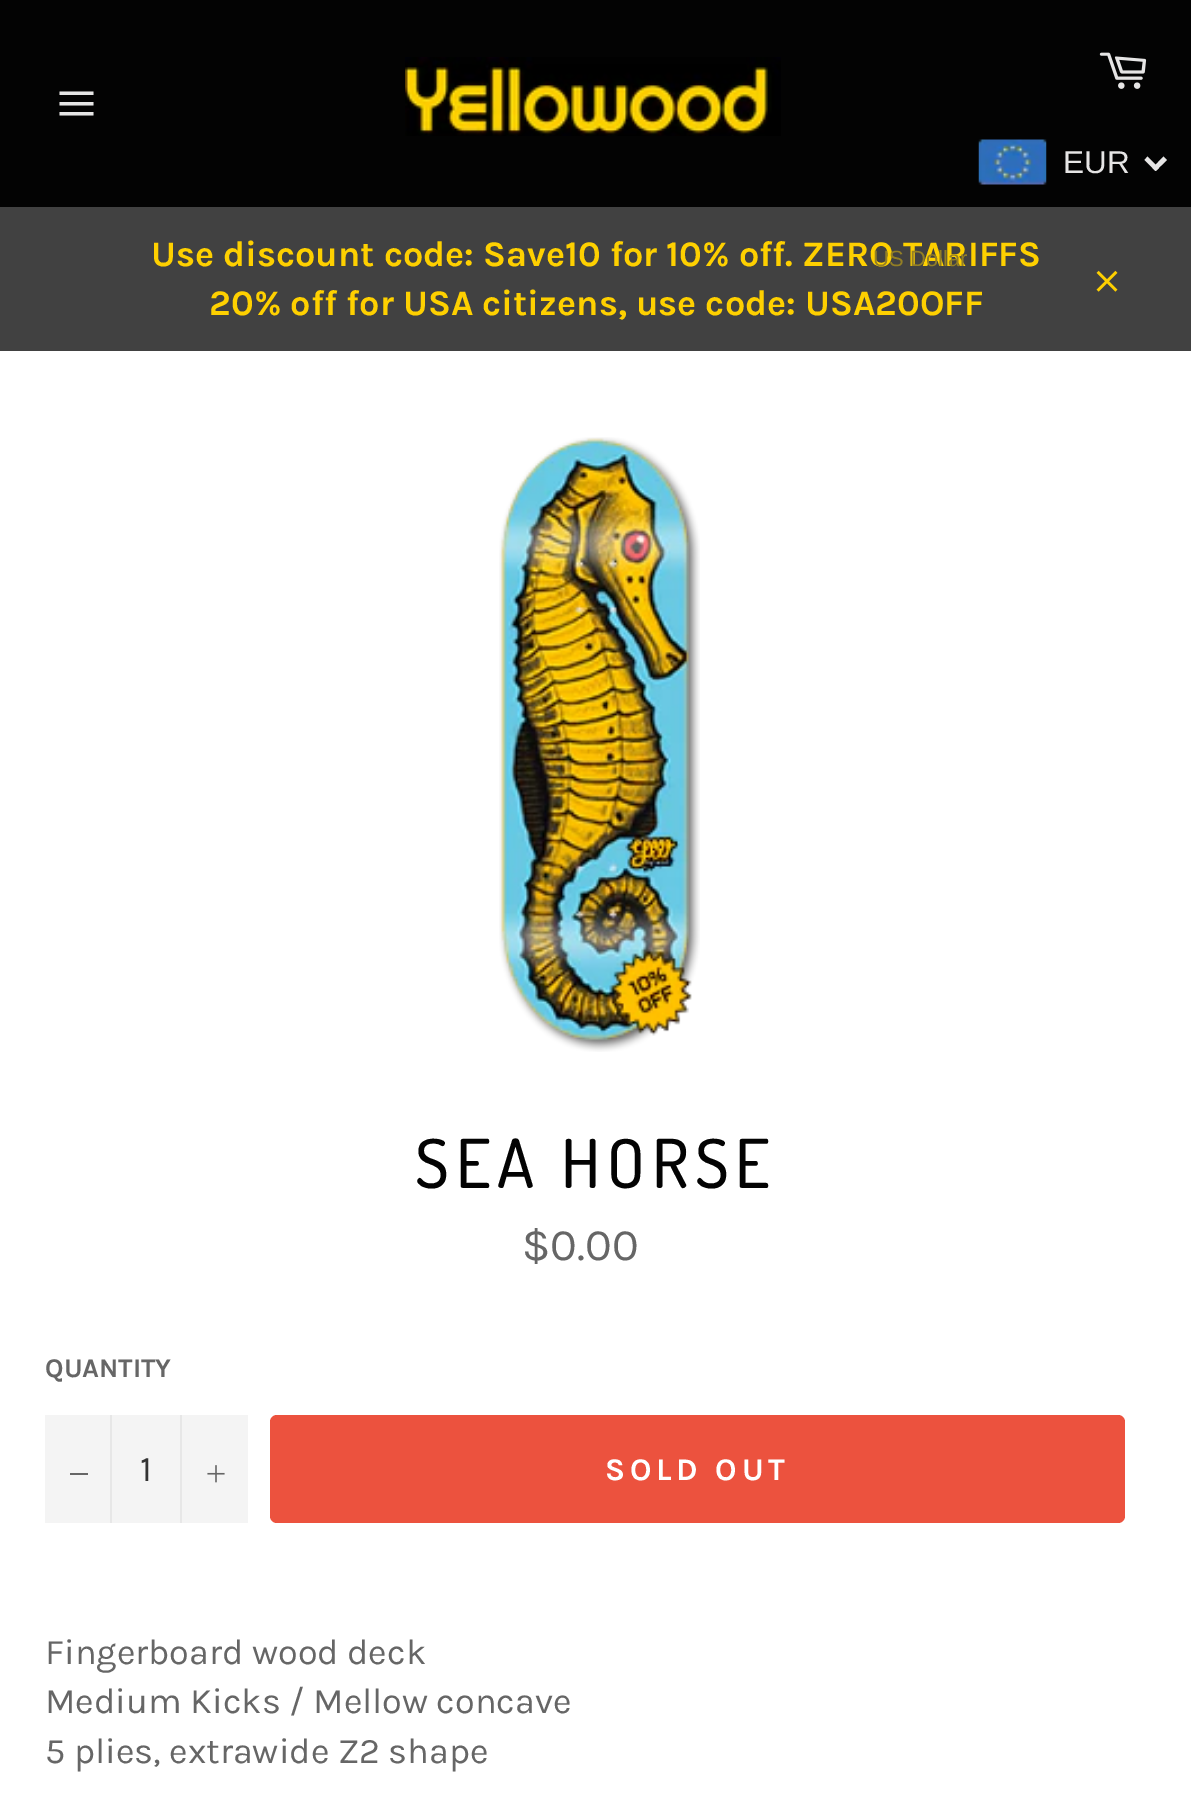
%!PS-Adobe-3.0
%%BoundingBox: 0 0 1191 1803
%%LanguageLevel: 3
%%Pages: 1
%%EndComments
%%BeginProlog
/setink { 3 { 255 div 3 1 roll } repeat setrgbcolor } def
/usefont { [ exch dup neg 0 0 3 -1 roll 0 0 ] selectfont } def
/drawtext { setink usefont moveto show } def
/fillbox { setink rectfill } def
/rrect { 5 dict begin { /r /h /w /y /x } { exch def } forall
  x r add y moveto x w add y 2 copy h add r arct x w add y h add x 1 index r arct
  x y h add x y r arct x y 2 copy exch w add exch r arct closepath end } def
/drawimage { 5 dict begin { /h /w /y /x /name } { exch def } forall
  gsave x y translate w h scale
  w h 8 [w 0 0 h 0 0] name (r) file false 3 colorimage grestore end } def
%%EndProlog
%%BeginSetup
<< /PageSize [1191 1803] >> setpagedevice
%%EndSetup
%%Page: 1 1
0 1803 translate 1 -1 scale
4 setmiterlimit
0 0 1191 1803 255 255 255 fillbox
0 0 1191 207 3 3 3 fillbox
230 229 229 setink
59.5 102 moveto 93.5 102 lineto 93.5 105.5 lineto 59.5 105.5 lineto closepath 59.5 91.5 moveto 93.5 91.5 lineto 93.5 95 lineto 59.5 95 lineto closepath 59.5 112 moveto 93.5 112 lineto 93.5 115.5 lineto 59.5 115.5 lineto closepath fill
(assets/img1.rgb) 405 57 376 79 drawimage
(assets/img2.rgb) 1099 52 48 37 drawimage
(assets/img3.rgb) 978 139 69 46 drawimage
(EUR) 1063 173 /LiberationSans-Regular 31.5 230 229 229 drawtext
1163.5 156.5 moveto 1167 160 lineto 1155.5 171 lineto 1152.5 168 lineto closepath fill
1147.5 156.5 moveto 1159 168 lineto 1155.5 171 lineto 1144.5 160 lineto closepath fill
0 207 1191 144 65 65 65 fillbox
(Use discount code: Save10 for 10% off. ZERO TARIFFS) 151 266 /Karla-Bold 36 254 208 0 drawtext
(US Dollar) 873 266 /LiberationSans-Regular 22 147 127 37 drawtext
(20% off for USA citizens, use code: USA20OFF) 209 315 /Karla-Bold 36 254 208 0 drawtext
(assets/img4.rgb) 1096 270 22 22 drawimage
(assets/img5.rgb) 499 437 201 615 drawimage
/Dosis-Medium 67.5 usefont
3 3 3 setink
415 1188 moveto 6.75 0 (SEA HORSE) ashow
($0.00) 522 1260 /Karla-Regular 45 102 102 102 drawtext
(QUANTITY) 45 1377 /Karla-Bold 27 102 102 102 drawtext
45 1415 203 108 244 244 244 fillbox
110 1415 2 108 231 231 231 fillbox
70 1473 18 2 102 102 102 fillbox
(1) 140 1481 /Karla-Regular 36 51 51 51 drawtext
180 1415 2 108 231 231 231 fillbox
(assets/img6.rgb) 207 1465 18 18 drawimage
236 82 62 setink
270 1415 855 108 7 rrect fill
/Karla-Bold 31.5 usefont
255 255 255 setink
605 1480 moveto 4.75 0 (SOLD OUT) ashow
(Fingerboard wood deck) 45 1664 /Karla-Regular 36 102 102 102 drawtext
(Medium Kicks / Mellow concave) 45 1713 /Karla-Regular 36 102 102 102 drawtext
(5 plies, extrawide Z2 shape) 45 1763 /Karla-Regular 36 102 102 102 drawtext
showpage
%%EOF
